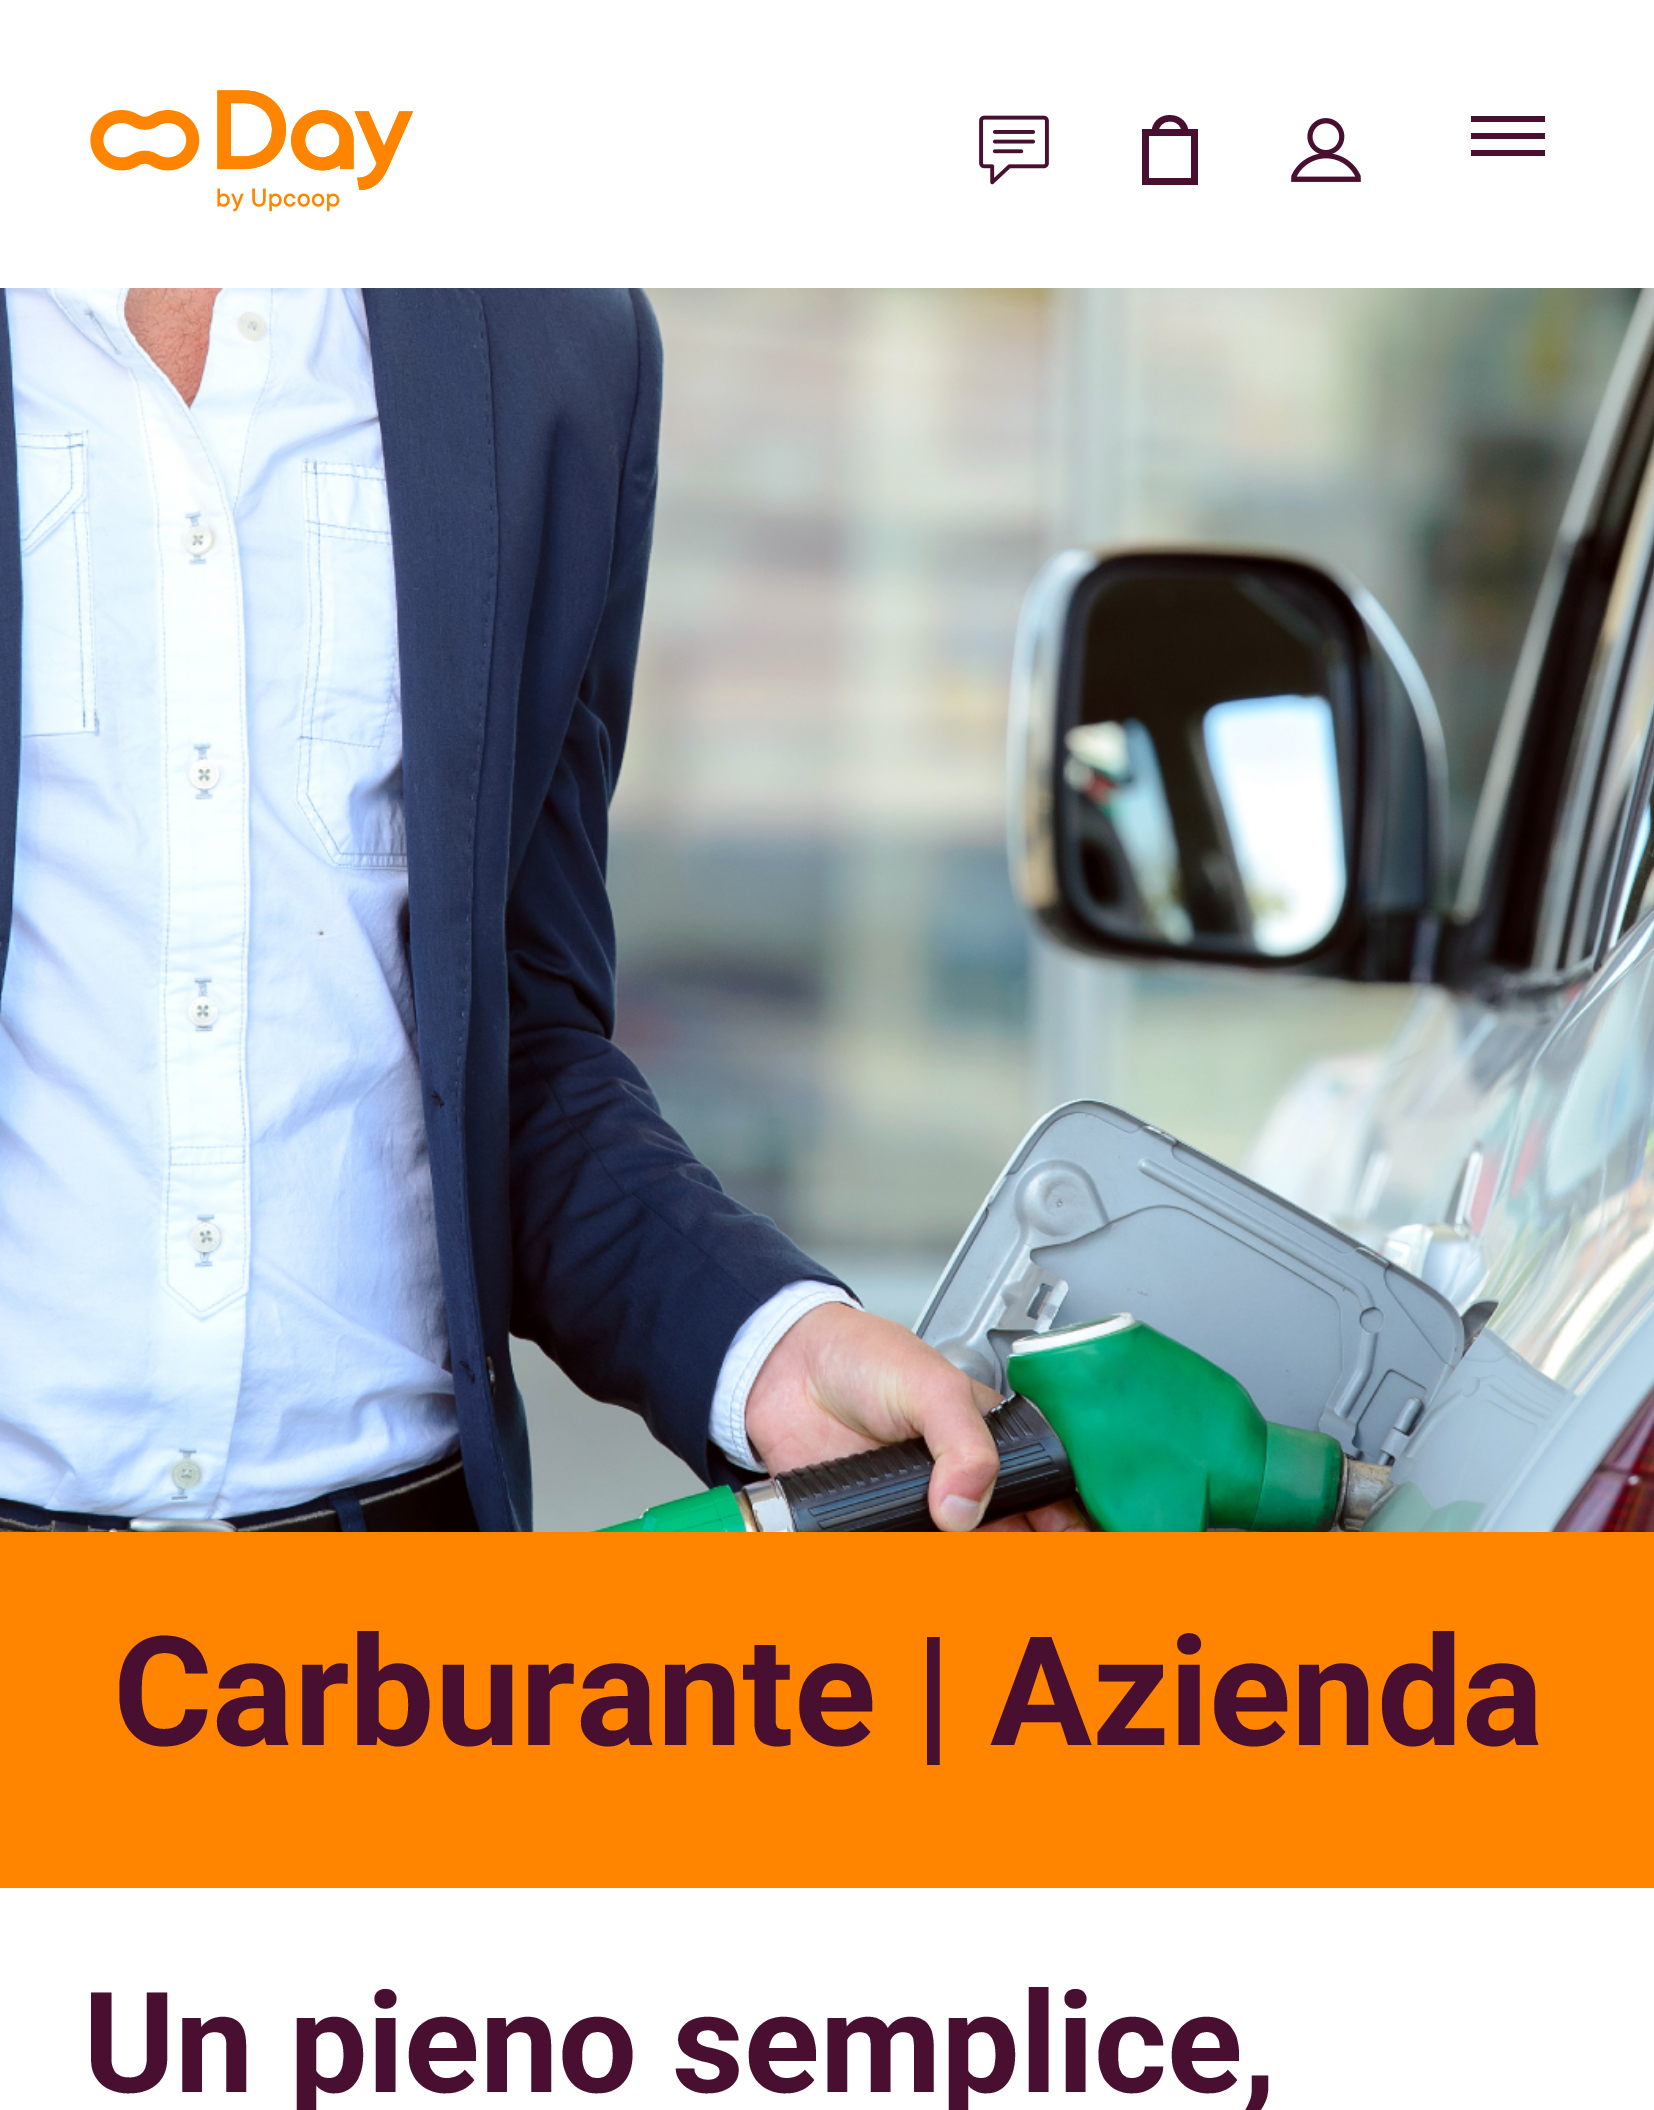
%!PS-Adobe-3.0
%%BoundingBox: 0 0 1654 2110
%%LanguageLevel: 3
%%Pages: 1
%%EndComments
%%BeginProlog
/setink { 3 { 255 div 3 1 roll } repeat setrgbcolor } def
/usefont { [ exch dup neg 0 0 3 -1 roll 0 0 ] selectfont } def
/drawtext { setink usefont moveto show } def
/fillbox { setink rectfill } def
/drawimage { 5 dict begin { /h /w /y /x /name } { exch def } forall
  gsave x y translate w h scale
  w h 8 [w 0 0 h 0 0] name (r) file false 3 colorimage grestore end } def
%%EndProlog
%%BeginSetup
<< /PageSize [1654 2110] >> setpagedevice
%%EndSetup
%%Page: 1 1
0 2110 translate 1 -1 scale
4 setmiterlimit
0 0 1654 2110 255 255 255 fillbox
(assets/img1.rgb) 90 90 323 122 drawimage
(assets/img2.rgb) 979 115 70 70 drawimage
73 15 48 setink
1198 185 moveto 1142 185 lineto 1142 129 lineto 1152 129 lineto 1156 110 1184 111 1188 129 curveto 1198 129 lineto closepath 1149 178 moveto 1191 178 lineto 1191 136 lineto 1149 136 lineto closepath 1159 129 moveto 1181 129 lineto 1178 119 1162 119 1159 129 curveto closepath fill
(assets/img3.rgb) 1291 118 70 64 drawimage
1471 116 74 6 73 15 48 fillbox
1471 133 74 6 73 15 48 fillbox
1471 150 74 6 73 15 48 fillbox
(assets/img4.rgb) 0 288 1654 1244 drawimage
0 1532 1654 356 255 133 0 fillbox
(Carburante | Azienda) 113 1745 /Roboto-Bold 152 73 15 48 drawtext
(Un pieno semplice,) 83 2092 /Roboto-Bold 140 73 15 48 drawtext
showpage
%%EOF
